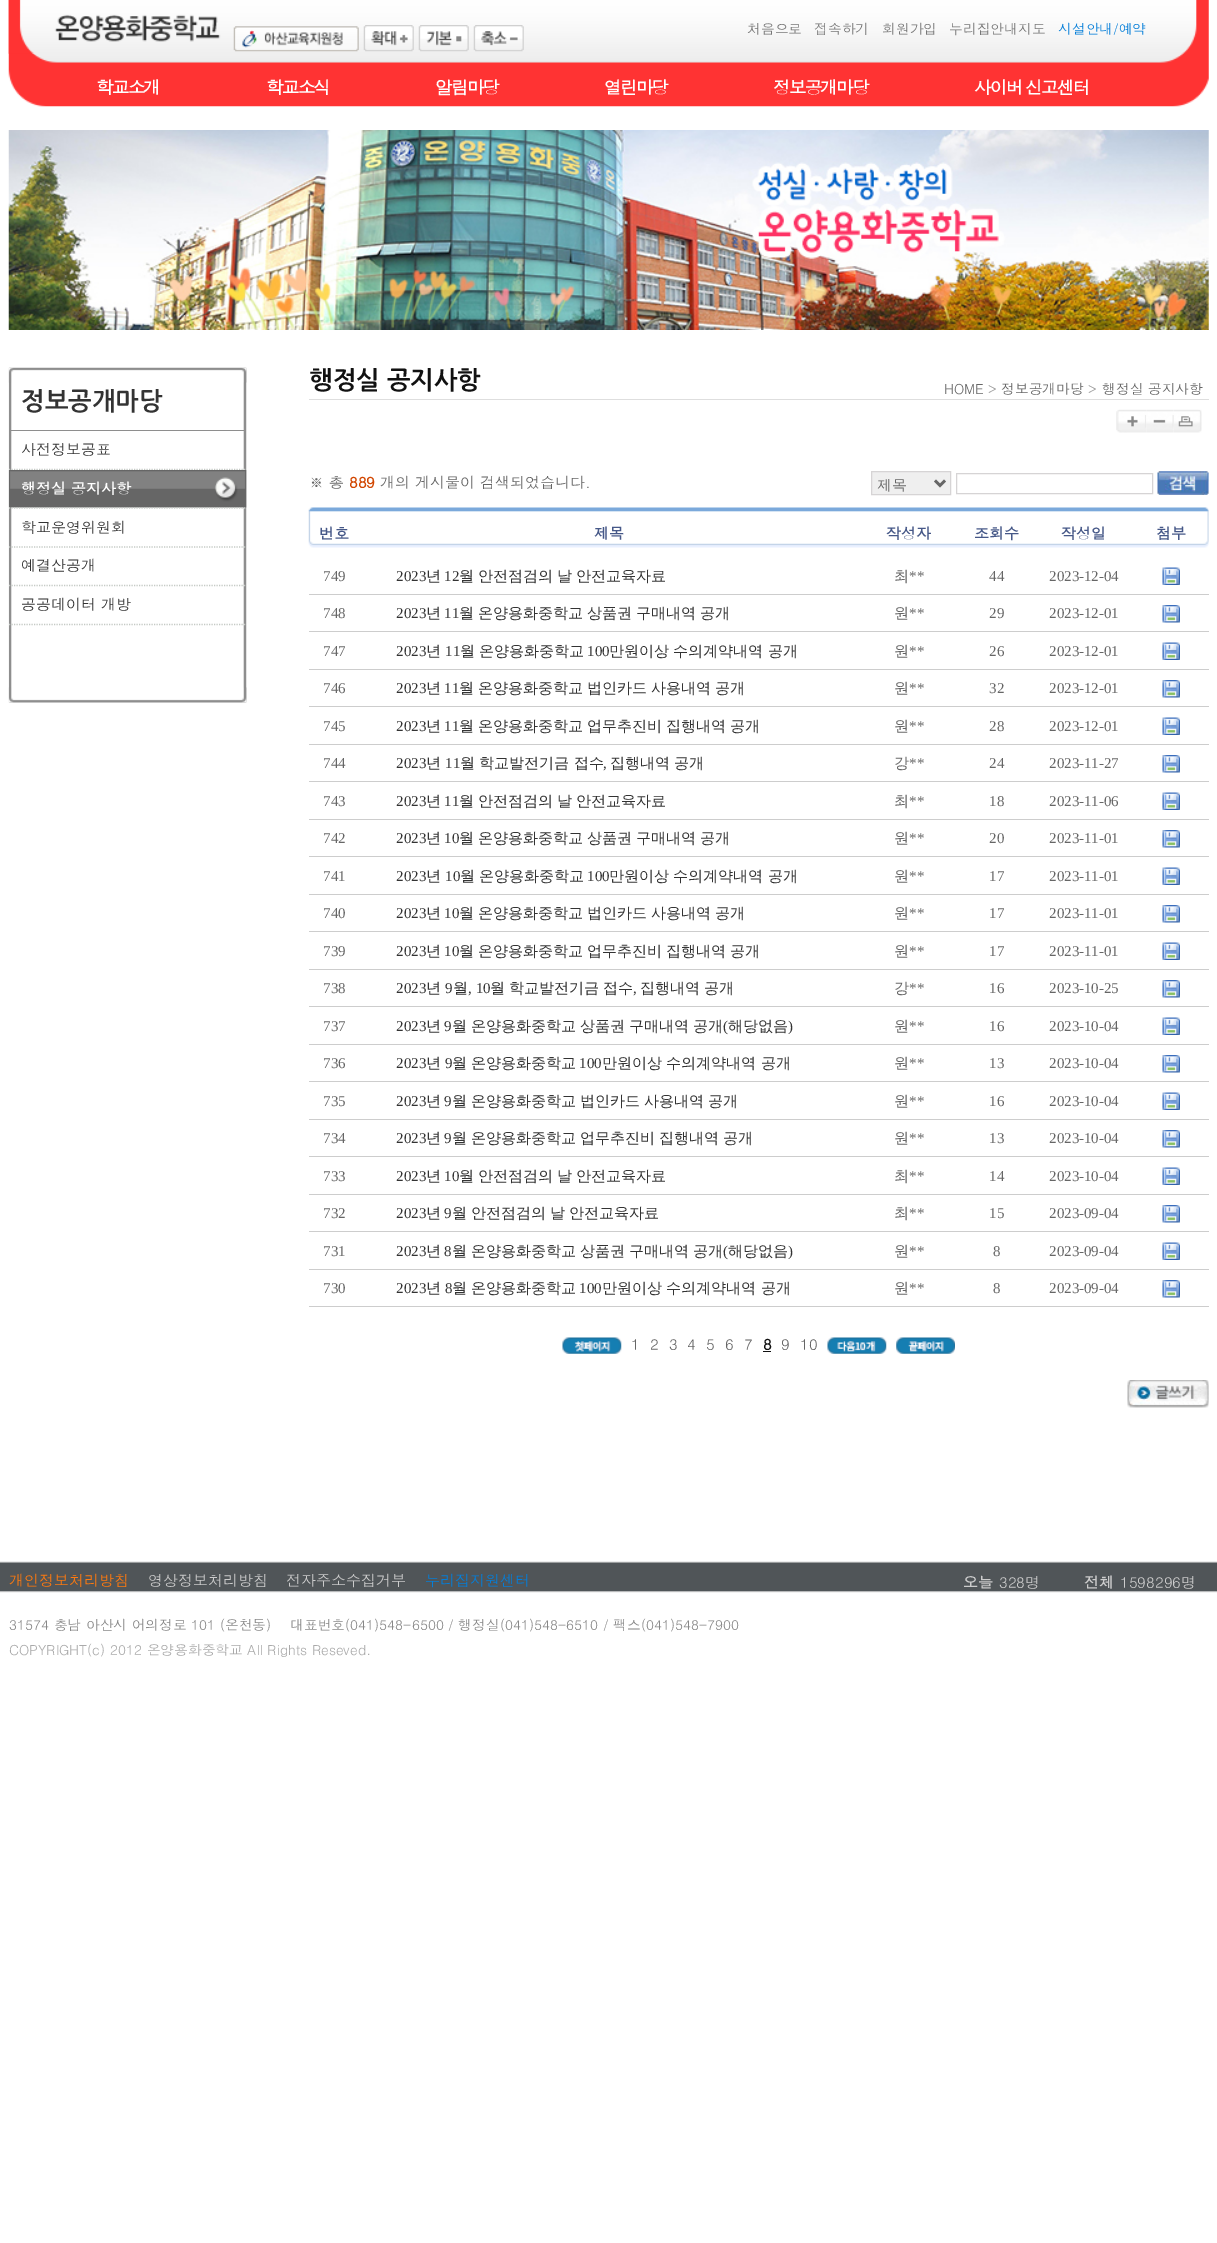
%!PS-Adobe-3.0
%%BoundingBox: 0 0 1217 2243
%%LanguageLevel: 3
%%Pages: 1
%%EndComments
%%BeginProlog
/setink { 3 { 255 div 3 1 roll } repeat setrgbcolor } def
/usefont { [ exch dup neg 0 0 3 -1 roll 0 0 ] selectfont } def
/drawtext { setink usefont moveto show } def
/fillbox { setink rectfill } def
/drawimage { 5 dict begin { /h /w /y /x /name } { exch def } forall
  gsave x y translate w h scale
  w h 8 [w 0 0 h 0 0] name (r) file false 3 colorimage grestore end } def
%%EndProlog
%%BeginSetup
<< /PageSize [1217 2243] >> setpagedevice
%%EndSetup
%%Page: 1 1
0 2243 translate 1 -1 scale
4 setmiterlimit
0 0 1217 2243 255 255 255 fillbox
(assets/img1.rgb) 8 0 1201 107 drawimage
(assets/img2.rgb) 8 0 213 54 drawimage
(assets/img3.rgb) 233 26 126 26 drawimage
(assets/img4.rgb) 363 25 51 27 drawimage
(assets/img5.rgb) 418 25 51 27 drawimage
(assets/img6.rgb) 473 25 51 27 drawimage
(처음으로) 747 34 /Dotum-Regular 13.75 119 119 119 drawtext
(접속하기) 814 34 /Dotum-Regular 13.75 119 119 119 drawtext
(회원가입) 882 34 /Dotum-Regular 13.75 119 119 119 drawtext
(누리집안내지도) 949 34 /Dotum-Regular 13.75 119 119 119 drawtext
(시설안내/예약) 1058 34 /Dotum-Regular 13.75 4 126 217 drawtext
/Dotum-Bold 17.5 usefont
255 255 255 setink
96 94 moveto -1.75 0 (학교소개) ashow
266 94 moveto -1.75 0 (학교소식) ashow
435 94 moveto -1.75 0 (알림마당) ashow
604 94 moveto -1.75 0 (열린마당) ashow
773 94 moveto -1.75 0 (정보공개마당) ashow
974 94 moveto -1.75 0 (사이버 신고센터) ashow
(assets/img7.rgb) 8 130 1201 200 drawimage
(assets/img8.rgb) 8 367 239 336 drawimage
(assets/img9.rgb) 8 367 239 16 drawimage
9 430 237 1 142 142 142 fillbox
(정보공개마당) 21 410 /NanumGothic-Bold 25 51 51 51 drawtext
197 202 197 setink
1.2 setlinewidth
[1.25 1.25] 0 setdash
9 469.5 moveto 246 469.5 lineto stroke
(사전정보공표) 21 455 /Dotum-Regular 15 51 51 51 drawtext
(assets/img10.rgb) 8 470 239 38 drawimage
197 202 197 setink
9 508 moveto 246 508 lineto stroke
(행정실 공지사항) 21 494 /Dotum-Bold 15 255 255 255 drawtext
197 202 197 setink
9 547 moveto 246 547 lineto stroke
(학교운영위원회) 21 533 /Dotum-Regular 15 51 51 51 drawtext
197 202 197 setink
9 585.5 moveto 246 585.5 lineto stroke
(예결산공개) 21 571 /Dotum-Regular 15 51 51 51 drawtext
197 202 197 setink
9 624.5 moveto 246 624.5 lineto stroke
(공공데이터 개방) 21 610 /Dotum-Regular 15 51 51 51 drawtext
(assets/img11.rgb) 8 687 239 16 drawimage
gsave
309 368 900 102 rectclip
(행정실 공지사항) 309 389 /NanumGothic-Bold 25 17 17 17 drawtext
grestore
(HOME) 944 394 /Dotum-Regular 13.75 102 102 102 drawtext
(>) 988 394 /Dotum-Regular 13.75 153 153 153 drawtext
(정보공개마당) 1001 394 /Dotum-Regular 13.75 102 102 102 drawtext
(>) 1088 394 /Dotum-Regular 13.75 153 153 153 drawtext
(행정실 공지사항) 1102 394 /Dotum-Regular 13.75 102 102 102 drawtext
309 399 900 1 222 222 222 fillbox
(assets/img12.rgb) 1116 409 31 24 drawimage
(assets/img13.rgb) 1146 409 28 24 drawimage
(assets/img14.rgb) 1174 409 28 24 drawimage
(※ 총) 309 488 /Dotum-Regular 15 102 102 102 drawtext
(889) 349 488 /Dotum-Bold 15 210 70 0 drawtext
(개의 게시물이 검색되었습니다.) 380 488 /Dotum-Regular 15 102 102 102 drawtext
239 239 239 setink
871.5 471.5 moveto 950.5 471.5 lineto 950.5 494.5 lineto 871.5 494.5 lineto closepath gsave fill grestore
214 212 213 setink
1 setlinewidth
[] 0 setdash
stroke
102 102 102 setink
2.5 setlinewidth
935 480.5 moveto 940 485.5 lineto 945 480.5 lineto stroke
(제목) 877 491 /Dotum-Regular 15 102 102 102 drawtext
214 212 213 setink
1 setlinewidth
956.5 473.5 196 20 rectstroke
(assets/img15.rgb) 1157 471 52 24 drawimage
(assets/img16.rgb) 308 507 901 41 drawimage
(번호) 319 539 /Dotum-Bold 15 70 88 136 drawtext
(제목) 594 539 /Dotum-Bold 15 70 88 136 drawtext
(작성자) 886 539 /Dotum-Bold 15 70 88 136 drawtext
(조회수) 974 539 /Dotum-Bold 15 70 88 136 drawtext
(작성일) 1061 539 /Dotum-Bold 15 70 88 136 drawtext
(첨부) 1156 539 /Dotum-Bold 15 70 88 136 drawtext
309 594 900 1 205 205 205 fillbox
(749) 323 581 /LiberationSerif-Regular 15 102 102 102 drawtext
(2023) 396 581 /LiberationSerif-Regular 15 51 51 51 drawtext
(년) 426 581 /WenQuanYiZenHei-Medium 15 51 51 51 drawtext
(12) 444 581 /LiberationSerif-Regular 15 51 51 51 drawtext
/WenQuanYiZenHei-Medium 15 usefont
459 581 moveto -0.5 0 32 (월 안전점검의 날 안전교육자료) widthshow
(최) 894 581 /WenQuanYiZenHei-Medium 15 102 102 102 drawtext
(**) 909 581 /LiberationSerif-Regular 15 102 102 102 drawtext
(44) 989 581 /LiberationSerif-Regular 15 102 102 102 drawtext
(2023-12-04) 1049 581 /LiberationSerif-Regular 15 102 102 102 drawtext
(assets/img17.rgb) 1162 567 18 18 drawimage
309 631 900 1 205 205 205 fillbox
(748) 323 618 /LiberationSerif-Regular 15 102 102 102 drawtext
(2023) 396 618 /LiberationSerif-Regular 15 51 51 51 drawtext
(년) 426 618 /WenQuanYiZenHei-Medium 15 51 51 51 drawtext
(11) 444 618 /LiberationSerif-Regular 15 51 51 51 drawtext
/WenQuanYiZenHei-Medium 15 usefont
459 618 moveto -0.5 0 32 (월 온양용화중학교 상품권 구매내역 공개) widthshow
(원) 894 618 /WenQuanYiZenHei-Medium 15 102 102 102 drawtext
(**) 909 618 /LiberationSerif-Regular 15 102 102 102 drawtext
(29) 989 618 /LiberationSerif-Regular 15 102 102 102 drawtext
(2023-12-01) 1049 618 /LiberationSerif-Regular 15 102 102 102 drawtext
(assets/img18.rgb) 1162 605 18 18 drawimage
309 669 900 1 205 205 205 fillbox
(747) 323 656 /LiberationSerif-Regular 15 102 102 102 drawtext
(2023) 396 656 /LiberationSerif-Regular 15 51 51 51 drawtext
(년) 426 656 /WenQuanYiZenHei-Medium 15 51 51 51 drawtext
(11) 445 656 /LiberationSerif-Regular 15 51 51 51 drawtext
(월 온양용화중학교) 460 656 /WenQuanYiZenHei-Medium 15 51 51 51 drawtext
(100) 587 656 /LiberationSerif-Regular 15 51 51 51 drawtext
(만원이상 수의계약내역 공개) 609 656 /WenQuanYiZenHei-Medium 15 51 51 51 drawtext
(원) 894 656 /WenQuanYiZenHei-Medium 15 102 102 102 drawtext
(**) 909 656 /LiberationSerif-Regular 15 102 102 102 drawtext
(26) 989 656 /LiberationSerif-Regular 15 102 102 102 drawtext
(2023-12-01) 1049 656 /LiberationSerif-Regular 15 102 102 102 drawtext
(assets/img17.rgb) 1162 642 18 18 drawimage
309 706 900 1 205 205 205 fillbox
(746) 323 693 /LiberationSerif-Regular 15 102 102 102 drawtext
(2023) 396 693 /LiberationSerif-Regular 15 51 51 51 drawtext
(년) 426 693 /WenQuanYiZenHei-Medium 15 51 51 51 drawtext
(11) 444 693 /LiberationSerif-Regular 15 51 51 51 drawtext
/WenQuanYiZenHei-Medium 15 usefont
459 693 moveto -0.5 0 32 (월 온양용화중학교 법인카드 사용내역 공개) widthshow
(원) 894 693 /WenQuanYiZenHei-Medium 15 102 102 102 drawtext
(**) 909 693 /LiberationSerif-Regular 15 102 102 102 drawtext
(32) 989 693 /LiberationSerif-Regular 15 102 102 102 drawtext
(2023-12-01) 1049 693 /LiberationSerif-Regular 15 102 102 102 drawtext
(assets/img18.rgb) 1162 680 18 18 drawimage
309 744 900 1 205 205 205 fillbox
(745) 323 731 /LiberationSerif-Regular 15 102 102 102 drawtext
(2023) 396 731 /LiberationSerif-Regular 15 51 51 51 drawtext
(년) 426 731 /WenQuanYiZenHei-Medium 15 51 51 51 drawtext
(11) 444 731 /LiberationSerif-Regular 15 51 51 51 drawtext
/WenQuanYiZenHei-Medium 15 usefont
459 731 moveto -0.5 0 32 (월 온양용화중학교 업무추진비 집행내역 공개) widthshow
(원) 894 731 /WenQuanYiZenHei-Medium 15 102 102 102 drawtext
(**) 909 731 /LiberationSerif-Regular 15 102 102 102 drawtext
(28) 989 731 /LiberationSerif-Regular 15 102 102 102 drawtext
(2023-12-01) 1049 731 /LiberationSerif-Regular 15 102 102 102 drawtext
(assets/img17.rgb) 1162 717 18 18 drawimage
309 781 900 1 205 205 205 fillbox
(744) 323 768 /LiberationSerif-Regular 15 102 102 102 drawtext
(2023) 396 768 /LiberationSerif-Regular 15 51 51 51 drawtext
(년) 426 768 /WenQuanYiZenHei-Medium 15 51 51 51 drawtext
(11) 445 768 /LiberationSerif-Regular 15 51 51 51 drawtext
(월 학교발전기금 접수) 460 768 /WenQuanYiZenHei-Medium 15 51 51 51 drawtext
(집행내역 공개) 610 768 /WenQuanYiZenHei-Medium 15 51 51 51 drawtext
(,) 603 768 /LiberationSerif-Regular 15 51 51 51 drawtext
(강) 894 768 /WenQuanYiZenHei-Medium 15 102 102 102 drawtext
(**) 909 768 /LiberationSerif-Regular 15 102 102 102 drawtext
(24) 989 768 /LiberationSerif-Regular 15 102 102 102 drawtext
(2023-11-27) 1049 768 /LiberationSerif-Regular 15 102 102 102 drawtext
(assets/img18.rgb) 1162 755 18 18 drawimage
309 819 900 1 205 205 205 fillbox
(743) 323 806 /LiberationSerif-Regular 15 102 102 102 drawtext
(2023) 396 806 /LiberationSerif-Regular 15 51 51 51 drawtext
(년) 426 806 /WenQuanYiZenHei-Medium 15 51 51 51 drawtext
(11) 444 806 /LiberationSerif-Regular 15 51 51 51 drawtext
/WenQuanYiZenHei-Medium 15 usefont
459 806 moveto -0.5 0 32 (월 안전점검의 날 안전교육자료) widthshow
(최) 894 806 /WenQuanYiZenHei-Medium 15 102 102 102 drawtext
(**) 909 806 /LiberationSerif-Regular 15 102 102 102 drawtext
(18) 989 806 /LiberationSerif-Regular 15 102 102 102 drawtext
(2023-11-06) 1049 806 /LiberationSerif-Regular 15 102 102 102 drawtext
(assets/img17.rgb) 1162 792 18 18 drawimage
309 856 900 1 205 205 205 fillbox
(742) 323 843 /LiberationSerif-Regular 15 102 102 102 drawtext
(2023) 396 843 /LiberationSerif-Regular 15 51 51 51 drawtext
(년) 426 843 /WenQuanYiZenHei-Medium 15 51 51 51 drawtext
(10) 444 843 /LiberationSerif-Regular 15 51 51 51 drawtext
/WenQuanYiZenHei-Medium 15 usefont
459 843 moveto -0.5 0 32 (월 온양용화중학교 상품권 구매내역 공개) widthshow
(원) 894 843 /WenQuanYiZenHei-Medium 15 102 102 102 drawtext
(**) 909 843 /LiberationSerif-Regular 15 102 102 102 drawtext
(20) 989 843 /LiberationSerif-Regular 15 102 102 102 drawtext
(2023-11-01) 1049 843 /LiberationSerif-Regular 15 102 102 102 drawtext
(assets/img18.rgb) 1162 830 18 18 drawimage
309 894 900 1 205 205 205 fillbox
(741) 323 881 /LiberationSerif-Regular 15 102 102 102 drawtext
(2023) 396 881 /LiberationSerif-Regular 15 51 51 51 drawtext
(년) 426 881 /WenQuanYiZenHei-Medium 15 51 51 51 drawtext
(10) 445 881 /LiberationSerif-Regular 15 51 51 51 drawtext
(월 온양용화중학교) 460 881 /WenQuanYiZenHei-Medium 15 51 51 51 drawtext
(100) 587 881 /LiberationSerif-Regular 15 51 51 51 drawtext
(만원이상 수의계약내역 공개) 609 881 /WenQuanYiZenHei-Medium 15 51 51 51 drawtext
(원) 894 881 /WenQuanYiZenHei-Medium 15 102 102 102 drawtext
(**) 909 881 /LiberationSerif-Regular 15 102 102 102 drawtext
(17) 989 881 /LiberationSerif-Regular 15 102 102 102 drawtext
(2023-11-01) 1049 881 /LiberationSerif-Regular 15 102 102 102 drawtext
(assets/img17.rgb) 1162 867 18 18 drawimage
309 931 900 1 205 205 205 fillbox
(740) 323 918 /LiberationSerif-Regular 15 102 102 102 drawtext
(2023) 396 918 /LiberationSerif-Regular 15 51 51 51 drawtext
(년) 426 918 /WenQuanYiZenHei-Medium 15 51 51 51 drawtext
(10) 444 918 /LiberationSerif-Regular 15 51 51 51 drawtext
/WenQuanYiZenHei-Medium 15 usefont
459 918 moveto -0.5 0 32 (월 온양용화중학교 법인카드 사용내역 공개) widthshow
(원) 894 918 /WenQuanYiZenHei-Medium 15 102 102 102 drawtext
(**) 909 918 /LiberationSerif-Regular 15 102 102 102 drawtext
(17) 989 918 /LiberationSerif-Regular 15 102 102 102 drawtext
(2023-11-01) 1049 918 /LiberationSerif-Regular 15 102 102 102 drawtext
(assets/img18.rgb) 1162 905 18 18 drawimage
309 969 900 1 205 205 205 fillbox
(739) 323 956 /LiberationSerif-Regular 15 102 102 102 drawtext
(2023) 396 956 /LiberationSerif-Regular 15 51 51 51 drawtext
(년) 426 956 /WenQuanYiZenHei-Medium 15 51 51 51 drawtext
(10) 444 956 /LiberationSerif-Regular 15 51 51 51 drawtext
/WenQuanYiZenHei-Medium 15 usefont
459 956 moveto -0.5 0 32 (월 온양용화중학교 업무추진비 집행내역 공개) widthshow
(원) 894 956 /WenQuanYiZenHei-Medium 15 102 102 102 drawtext
(**) 909 956 /LiberationSerif-Regular 15 102 102 102 drawtext
(17) 989 956 /LiberationSerif-Regular 15 102 102 102 drawtext
(2023-11-01) 1049 956 /LiberationSerif-Regular 15 102 102 102 drawtext
(assets/img17.rgb) 1162 942 18 18 drawimage
309 1006 900 1 205 205 205 fillbox
(738) 323 993 /LiberationSerif-Regular 15 102 102 102 drawtext
(2023) 396 993 /LiberationSerif-Regular 15 51 51 51 drawtext
(년) 426 993 /WenQuanYiZenHei-Medium 15 51 51 51 drawtext
(9) 445 993 /LiberationSerif-Regular 15 51 51 51 drawtext
(월) 453 993 /WenQuanYiZenHei-Medium 15 51 51 51 drawtext
(, 10) 468 993 /LiberationSerif-Regular 15 51 51 51 drawtext
(월) 490 993 /WenQuanYiZenHei-Medium 15 51 51 51 drawtext
(학교발전기금) 509 993 /WenQuanYiZenHei-Medium 15 51 51 51 drawtext
(접수) 603 993 /WenQuanYiZenHei-Medium 15 51 51 51 drawtext
(,) 633 993 /LiberationSerif-Regular 15 51 51 51 drawtext
(집행내역) 640 993 /WenQuanYiZenHei-Medium 15 51 51 51 drawtext
(공개) 704 993 /WenQuanYiZenHei-Medium 15 51 51 51 drawtext
(강) 894 993 /WenQuanYiZenHei-Medium 15 102 102 102 drawtext
(**) 909 993 /LiberationSerif-Regular 15 102 102 102 drawtext
(16) 989 993 /LiberationSerif-Regular 15 102 102 102 drawtext
(2023-10-25) 1049 993 /LiberationSerif-Regular 15 102 102 102 drawtext
(assets/img18.rgb) 1162 980 18 18 drawimage
309 1044 900 1 205 205 205 fillbox
(737) 323 1031 /LiberationSerif-Regular 15 102 102 102 drawtext
(2023) 396 1031 /LiberationSerif-Regular 15 51 51 51 drawtext
(년) 426 1031 /WenQuanYiZenHei-Medium 15 51 51 51 drawtext
(9) 444 1031 /LiberationSerif-Regular 15 51 51 51 drawtext
/WenQuanYiZenHei-Medium 15 usefont
452 1031 moveto -0.5 0 32 (월 온양용화중학교 상품권 구매내역 공개) widthshow
(\() 723 1031 /LiberationSerif-Regular 15 51 51 51 drawtext
(해당없음) 728 1031 /WenQuanYiZenHei-Medium 15 51 51 51 drawtext
(\)) 788 1031 /LiberationSerif-Regular 15 51 51 51 drawtext
(원) 894 1031 /WenQuanYiZenHei-Medium 15 102 102 102 drawtext
(**) 909 1031 /LiberationSerif-Regular 15 102 102 102 drawtext
(16) 989 1031 /LiberationSerif-Regular 15 102 102 102 drawtext
(2023-10-04) 1049 1031 /LiberationSerif-Regular 15 102 102 102 drawtext
(assets/img17.rgb) 1162 1017 18 18 drawimage
309 1081 900 1 205 205 205 fillbox
(736) 323 1068 /LiberationSerif-Regular 15 102 102 102 drawtext
(2023) 396 1068 /LiberationSerif-Regular 15 51 51 51 drawtext
(년) 426 1068 /WenQuanYiZenHei-Medium 15 51 51 51 drawtext
(9) 445 1068 /LiberationSerif-Regular 15 51 51 51 drawtext
(월 온양용화중학교) 452 1068 /WenQuanYiZenHei-Medium 15 51 51 51 drawtext
(100) 579 1068 /LiberationSerif-Regular 15 51 51 51 drawtext
(만원이상 수의계약내역 공개) 602 1068 /WenQuanYiZenHei-Medium 15 51 51 51 drawtext
(원) 894 1068 /WenQuanYiZenHei-Medium 15 102 102 102 drawtext
(**) 909 1068 /LiberationSerif-Regular 15 102 102 102 drawtext
(13) 989 1068 /LiberationSerif-Regular 15 102 102 102 drawtext
(2023-10-04) 1049 1068 /LiberationSerif-Regular 15 102 102 102 drawtext
(assets/img18.rgb) 1162 1055 18 18 drawimage
309 1119 900 1 205 205 205 fillbox
(735) 323 1106 /LiberationSerif-Regular 15 102 102 102 drawtext
(2023) 396 1106 /LiberationSerif-Regular 15 51 51 51 drawtext
(년) 426 1106 /WenQuanYiZenHei-Medium 15 51 51 51 drawtext
(9) 444 1106 /LiberationSerif-Regular 15 51 51 51 drawtext
/WenQuanYiZenHei-Medium 15 usefont
452 1106 moveto -0.5 0 32 (월 온양용화중학교 법인카드 사용내역 공개) widthshow
(원) 894 1106 /WenQuanYiZenHei-Medium 15 102 102 102 drawtext
(**) 909 1106 /LiberationSerif-Regular 15 102 102 102 drawtext
(16) 989 1106 /LiberationSerif-Regular 15 102 102 102 drawtext
(2023-10-04) 1049 1106 /LiberationSerif-Regular 15 102 102 102 drawtext
(assets/img17.rgb) 1162 1092 18 18 drawimage
309 1156 900 1 205 205 205 fillbox
(734) 323 1143 /LiberationSerif-Regular 15 102 102 102 drawtext
(2023) 396 1143 /LiberationSerif-Regular 15 51 51 51 drawtext
(년) 426 1143 /WenQuanYiZenHei-Medium 15 51 51 51 drawtext
(9) 444 1143 /LiberationSerif-Regular 15 51 51 51 drawtext
/WenQuanYiZenHei-Medium 15 usefont
452 1143 moveto -0.5 0 32 (월 온양용화중학교 업무추진비 집행내역 공개) widthshow
(원) 894 1143 /WenQuanYiZenHei-Medium 15 102 102 102 drawtext
(**) 909 1143 /LiberationSerif-Regular 15 102 102 102 drawtext
(13) 989 1143 /LiberationSerif-Regular 15 102 102 102 drawtext
(2023-10-04) 1049 1143 /LiberationSerif-Regular 15 102 102 102 drawtext
(assets/img18.rgb) 1162 1130 18 18 drawimage
309 1194 900 1 205 205 205 fillbox
(733) 323 1181 /LiberationSerif-Regular 15 102 102 102 drawtext
(2023) 396 1181 /LiberationSerif-Regular 15 51 51 51 drawtext
(년) 426 1181 /WenQuanYiZenHei-Medium 15 51 51 51 drawtext
(10) 444 1181 /LiberationSerif-Regular 15 51 51 51 drawtext
/WenQuanYiZenHei-Medium 15 usefont
459 1181 moveto -0.5 0 32 (월 안전점검의 날 안전교육자료) widthshow
(최) 894 1181 /WenQuanYiZenHei-Medium 15 102 102 102 drawtext
(**) 909 1181 /LiberationSerif-Regular 15 102 102 102 drawtext
(14) 989 1181 /LiberationSerif-Regular 15 102 102 102 drawtext
(2023-10-04) 1049 1181 /LiberationSerif-Regular 15 102 102 102 drawtext
(assets/img19.rgb) 1162 1167 18 18 drawimage
309 1231 900 1 205 205 205 fillbox
(732) 323 1218 /LiberationSerif-Regular 15 102 102 102 drawtext
(2023) 396 1218 /LiberationSerif-Regular 15 51 51 51 drawtext
(년) 426 1218 /WenQuanYiZenHei-Medium 15 51 51 51 drawtext
(9) 444 1218 /LiberationSerif-Regular 15 51 51 51 drawtext
/WenQuanYiZenHei-Medium 15 usefont
452 1218 moveto -0.5 0 32 (월 안전점검의 날 안전교육자료) widthshow
(최) 894 1218 /WenQuanYiZenHei-Medium 15 102 102 102 drawtext
(**) 909 1218 /LiberationSerif-Regular 15 102 102 102 drawtext
(15) 989 1218 /LiberationSerif-Regular 15 102 102 102 drawtext
(2023-09-04) 1049 1218 /LiberationSerif-Regular 15 102 102 102 drawtext
(assets/img18.rgb) 1162 1205 18 18 drawimage
309 1269 900 1 205 205 205 fillbox
(731) 323 1256 /LiberationSerif-Regular 15 102 102 102 drawtext
(2023) 396 1256 /LiberationSerif-Regular 15 51 51 51 drawtext
(년) 426 1256 /WenQuanYiZenHei-Medium 15 51 51 51 drawtext
(8) 444 1256 /LiberationSerif-Regular 15 51 51 51 drawtext
/WenQuanYiZenHei-Medium 15 usefont
452 1256 moveto -0.5 0 32 (월 온양용화중학교 상품권 구매내역 공개) widthshow
(\() 723 1256 /LiberationSerif-Regular 15 51 51 51 drawtext
(해당없음) 728 1256 /WenQuanYiZenHei-Medium 15 51 51 51 drawtext
(\)) 788 1256 /LiberationSerif-Regular 15 51 51 51 drawtext
(원) 894 1256 /WenQuanYiZenHei-Medium 15 102 102 102 drawtext
(**) 909 1256 /LiberationSerif-Regular 15 102 102 102 drawtext
(8) 993 1256 /LiberationSerif-Regular 15 102 102 102 drawtext
(2023-09-04) 1049 1256 /LiberationSerif-Regular 15 102 102 102 drawtext
(assets/img17.rgb) 1162 1242 18 18 drawimage
309 1306 900 1 205 205 205 fillbox
(730) 323 1293 /LiberationSerif-Regular 15 102 102 102 drawtext
(2023) 396 1293 /LiberationSerif-Regular 15 51 51 51 drawtext
(년) 426 1293 /WenQuanYiZenHei-Medium 15 51 51 51 drawtext
(8) 445 1293 /LiberationSerif-Regular 15 51 51 51 drawtext
(월 온양용화중학교) 452 1293 /WenQuanYiZenHei-Medium 15 51 51 51 drawtext
(100) 579 1293 /LiberationSerif-Regular 15 51 51 51 drawtext
(만원이상 수의계약내역 공개) 602 1293 /WenQuanYiZenHei-Medium 15 51 51 51 drawtext
(원) 894 1293 /WenQuanYiZenHei-Medium 15 102 102 102 drawtext
(**) 909 1293 /LiberationSerif-Regular 15 102 102 102 drawtext
(8) 993 1293 /LiberationSerif-Regular 15 102 102 102 drawtext
(2023-09-04) 1049 1293 /LiberationSerif-Regular 15 102 102 102 drawtext
(assets/img18.rgb) 1162 1280 18 18 drawimage
(assets/img20.rgb) 562 1337 60 17 drawimage
(1) 631 1350 /Dotum-Regular 15 102 102 102 drawtext
(2) 650 1350 /Dotum-Regular 15 102 102 102 drawtext
(3) 669 1350 /Dotum-Regular 15 102 102 102 drawtext
(4) 687 1350 /Dotum-Regular 15 102 102 102 drawtext
(5) 706 1350 /Dotum-Regular 15 102 102 102 drawtext
(6) 725 1350 /Dotum-Regular 15 102 102 102 drawtext
(7) 744 1350 /Dotum-Regular 15 102 102 102 drawtext
(8) 763 1350 /Dotum-Bold 15 17 17 17 drawtext
763 1351 8 1 17 17 17 fillbox
(9) 781 1350 /Dotum-Regular 15 102 102 102 drawtext
(10) 800 1350 /Dotum-Regular 15 102 102 102 drawtext
(assets/img21.rgb) 827 1337 60 17 drawimage
(assets/img22.rgb) 896 1337 59 17 drawimage
(assets/img23.rgb) 1127 1380 82 28 drawimage
(assets/img24.rgb) 0 1561 1217 32 drawimage
(개인정보처리방침) 9 1586 /Dotum-Regular 15 255 122 15 drawtext
(영상정보처리방침) 148 1586 /Dotum-Regular 15 204 204 204 drawtext
(전자주소수집거부) 286 1586 /Dotum-Regular 15 204 204 204 drawtext
(누리집지원센터) 425 1586 /Dotum-Regular 15 4 126 217 drawtext
(오늘) 963 1588 /Dotum-Bold 15 204 204 204 drawtext
(328명) 999 1588 /Dotum-Regular 15 204 204 204 drawtext
(전체) 1084 1588 /Dotum-Bold 15 204 204 204 drawtext
(1598296명) 1120 1588 /Dotum-Regular 15 204 204 204 drawtext
(31574 충남 아산시 어의정로 101 \(온천동\)) 9 1630 /Dotum-Regular 13.75 136 136 136 drawtext
(대표번호\(041\)548-6500 / 행정실\(041\)548-6510 / 팩스\(041\)548-7900) 290 1630 /Dotum-Regular 13.75 136 136 136 drawtext
(COPYRIGHT\(c\) 2012 온양용화중학교 All Rights Reseved.) 9 1655 /Dotum-Regular 13.75 170 170 170 drawtext
showpage
%%EOF
